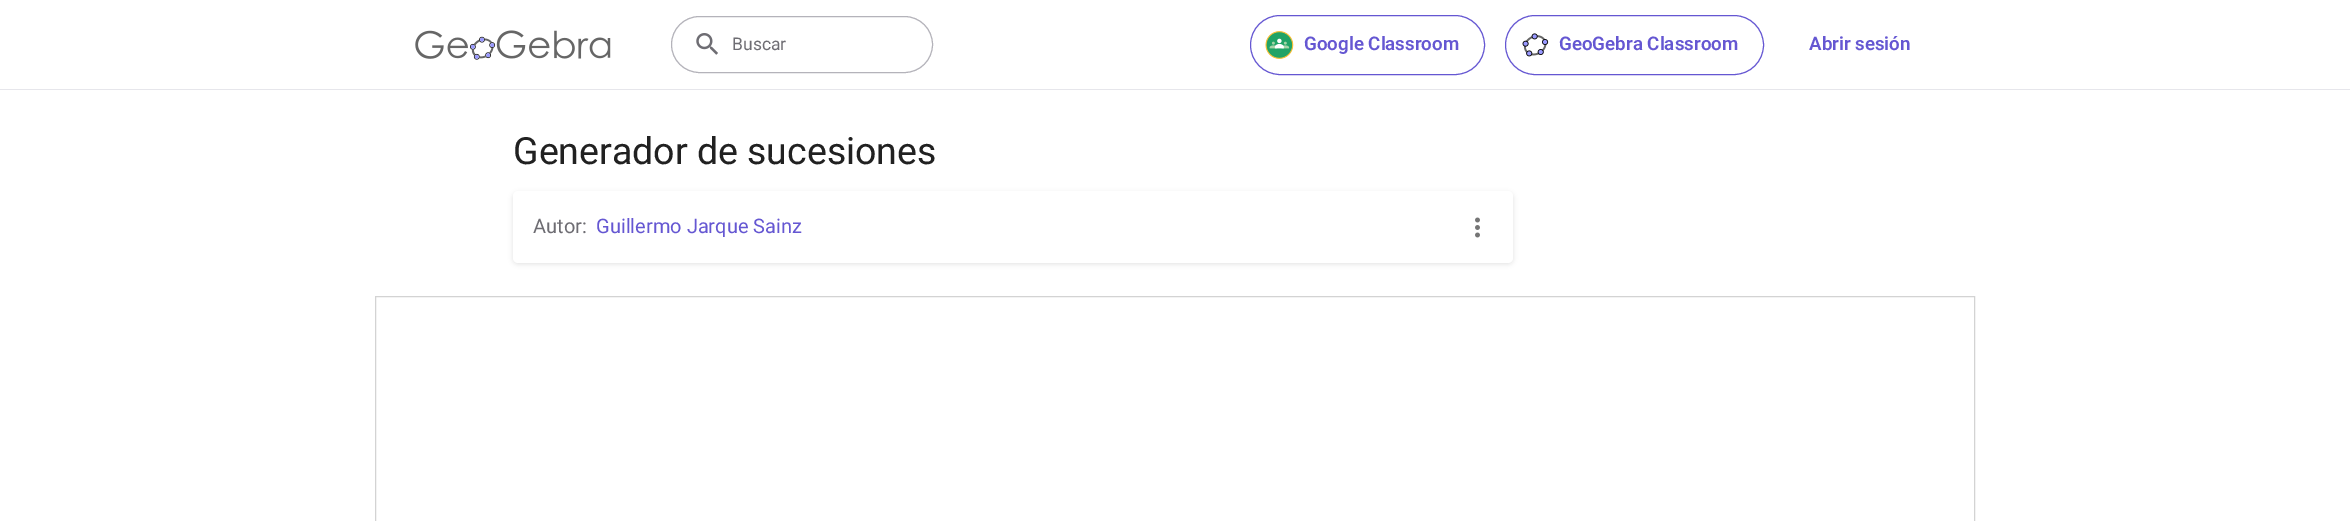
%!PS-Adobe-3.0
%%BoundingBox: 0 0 2350 521
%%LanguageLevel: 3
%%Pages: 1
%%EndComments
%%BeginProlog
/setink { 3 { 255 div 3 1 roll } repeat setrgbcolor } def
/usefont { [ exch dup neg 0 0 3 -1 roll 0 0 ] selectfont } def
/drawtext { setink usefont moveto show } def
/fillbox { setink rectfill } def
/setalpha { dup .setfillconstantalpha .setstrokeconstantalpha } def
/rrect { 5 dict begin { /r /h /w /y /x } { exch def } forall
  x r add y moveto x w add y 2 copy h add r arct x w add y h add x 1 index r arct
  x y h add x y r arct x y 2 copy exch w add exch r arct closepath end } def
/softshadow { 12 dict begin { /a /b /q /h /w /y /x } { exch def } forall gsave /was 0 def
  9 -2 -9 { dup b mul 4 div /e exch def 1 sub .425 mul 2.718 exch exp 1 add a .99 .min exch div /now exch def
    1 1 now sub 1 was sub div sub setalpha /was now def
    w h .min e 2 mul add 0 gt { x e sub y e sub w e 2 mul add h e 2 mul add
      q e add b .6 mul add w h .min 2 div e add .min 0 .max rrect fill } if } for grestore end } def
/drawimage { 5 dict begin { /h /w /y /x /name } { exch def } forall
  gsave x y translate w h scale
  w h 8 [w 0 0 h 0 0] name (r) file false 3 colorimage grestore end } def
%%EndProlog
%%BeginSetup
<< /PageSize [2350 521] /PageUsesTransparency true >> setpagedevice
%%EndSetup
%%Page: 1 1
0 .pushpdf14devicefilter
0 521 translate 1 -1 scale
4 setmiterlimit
0 0 2350 521 255 255 255 fillbox
0 89 2350 1 230 230 235 fillbox
(assets/img1.rgb) 415 30 196 30 drawimage
180 179 186 setink
671.5 16.5 261 56 28 rrect stroke
(assets/img2.rgb) 696 33 22 22 drawimage
(Buscar) 732 50 /Roboto-Regular 17.5 110 109 115 drawtext
101 87 210 setink
1250.5 15.5 234 59 29.5 rrect stroke
(assets/img3.rgb) 1265 31 29 28 drawimage
(Google Classroom) 1304 50 /Roboto-SemiBold 18.75 101 87 210 drawtext
1505.5 15.5 258 59 29.5 rrect stroke
(assets/img4.rgb) 1522 33 27 24 drawimage
(GeoGebra Classroom) 1559 50 /Roboto-SemiBold 18.75 101 87 210 drawtext
(Abrir sesión) 1809 50 /Roboto-SemiBold 18.75 101 87 210 drawtext
(Generador de sucesiones) 513 164 /Roboto-Regular 37.5 33 33 33 drawtext
28 28 31 setink
513 193 1000 71 5 2.5 0.14 softshadow
255 255 255 setink
513 191 1000 72 5 rrect fill
(Autor:) 533 233 /Roboto-Regular 20 110 109 115 drawtext
(Guillermo Jarque Sainz) 596 233 /Roboto-Regular 20 101 87 210 drawtext
(assets/img5.rgb) 1475 217 5 21 drawimage
211 211 211 setink
375.5 296.5 1599 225 rectstroke
.poppdf14devicefilter showpage
%%EOF
